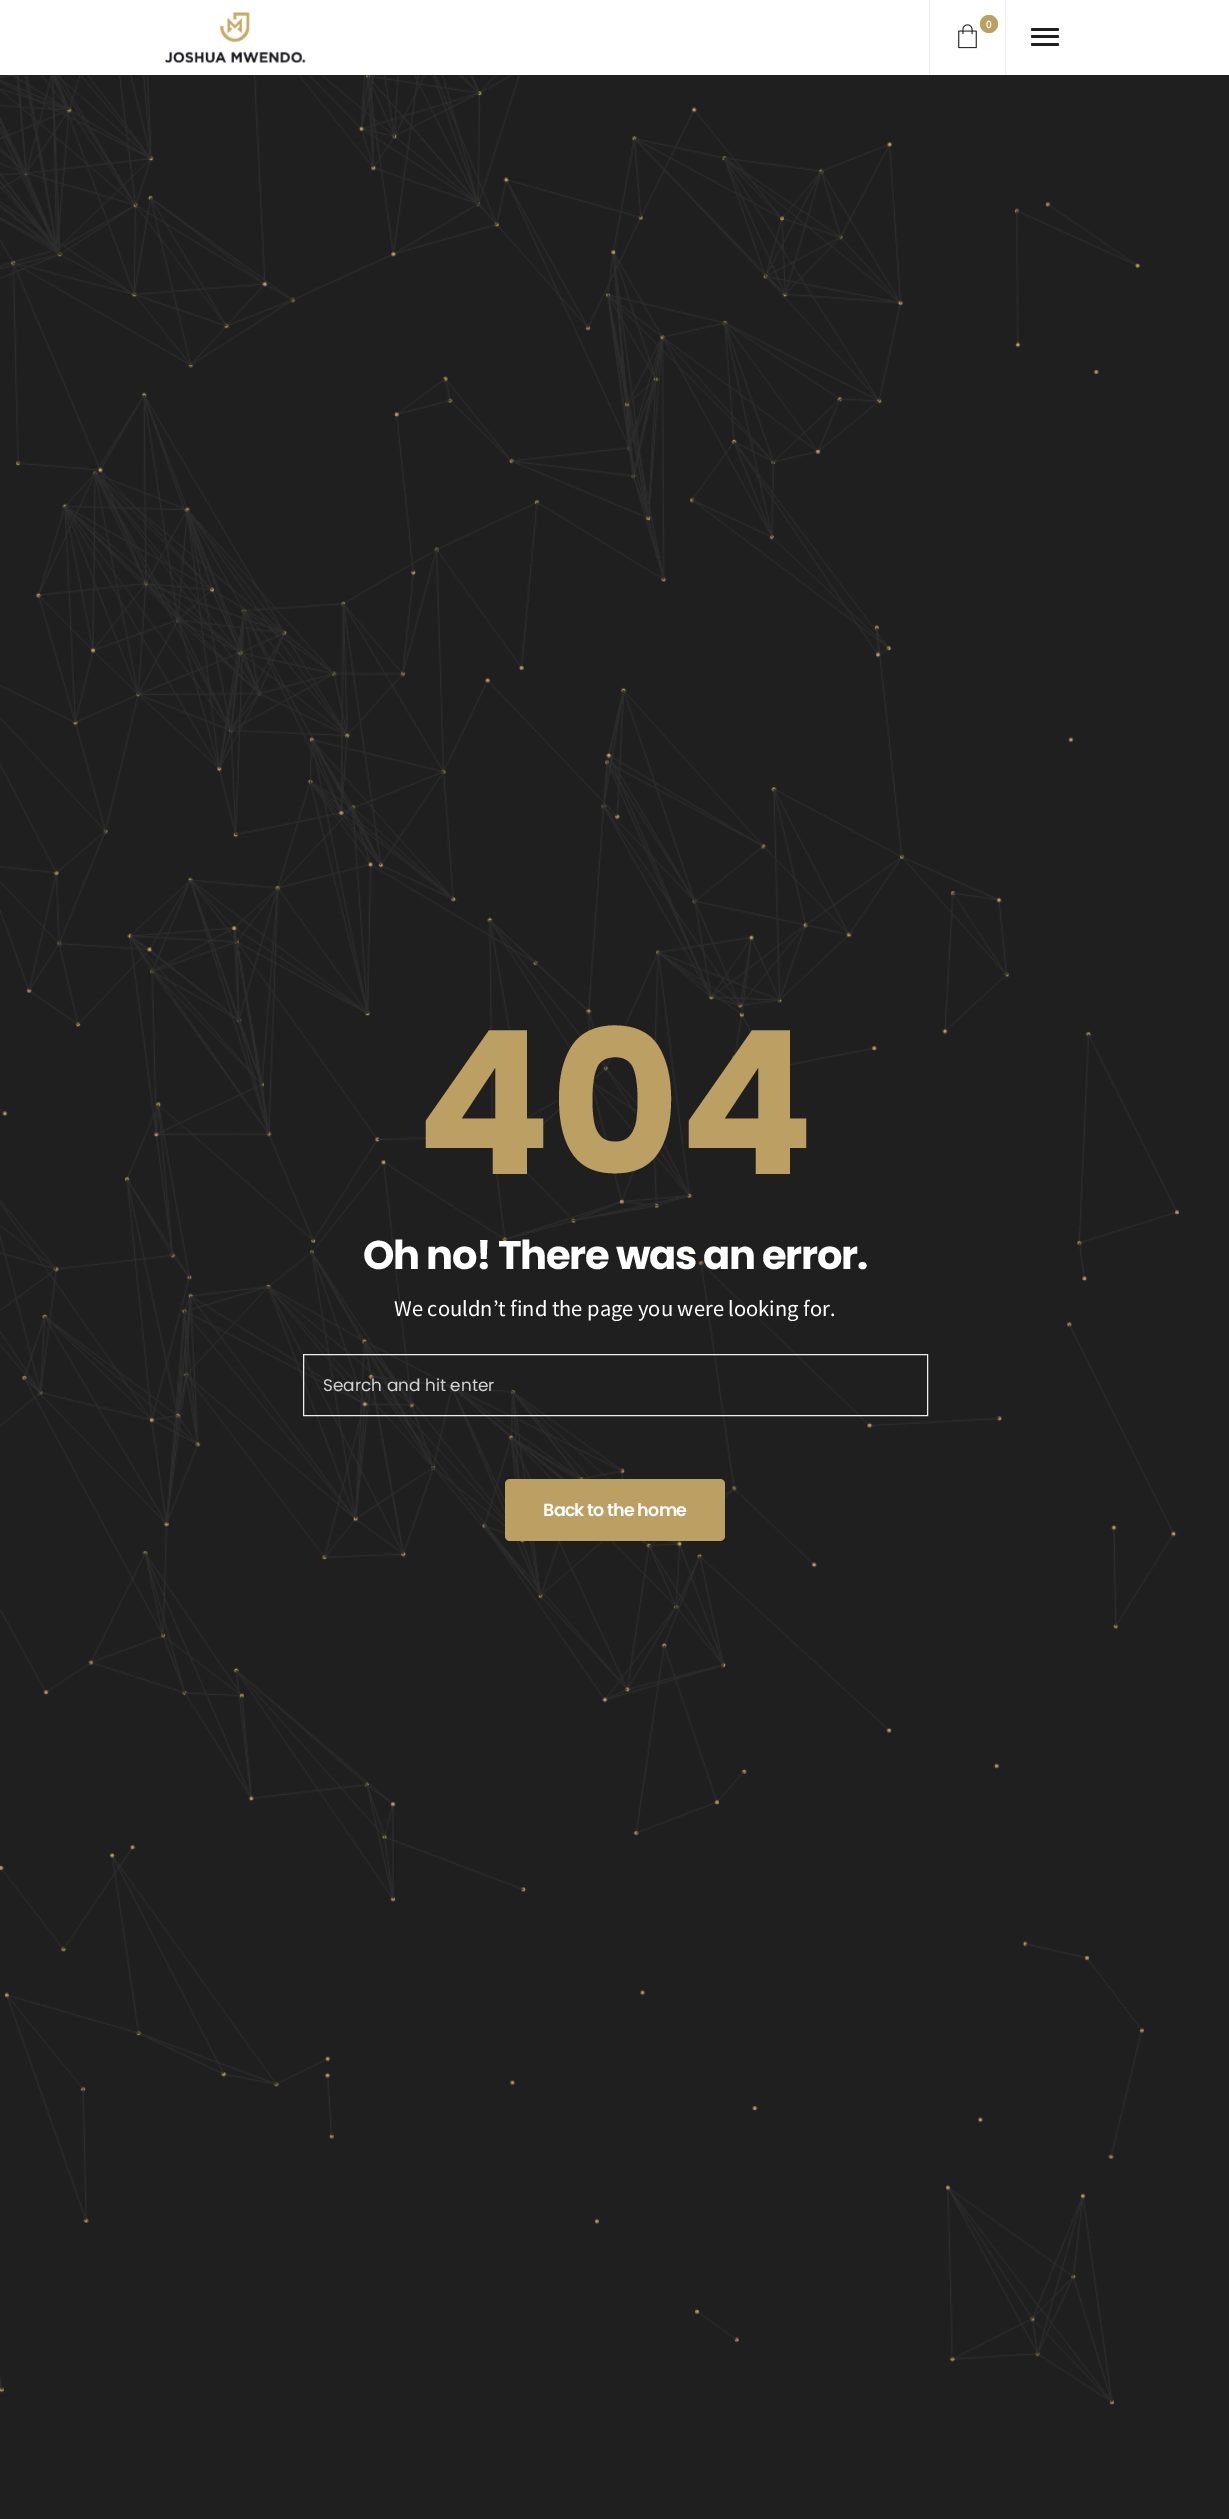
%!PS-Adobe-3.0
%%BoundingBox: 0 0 1229 2519
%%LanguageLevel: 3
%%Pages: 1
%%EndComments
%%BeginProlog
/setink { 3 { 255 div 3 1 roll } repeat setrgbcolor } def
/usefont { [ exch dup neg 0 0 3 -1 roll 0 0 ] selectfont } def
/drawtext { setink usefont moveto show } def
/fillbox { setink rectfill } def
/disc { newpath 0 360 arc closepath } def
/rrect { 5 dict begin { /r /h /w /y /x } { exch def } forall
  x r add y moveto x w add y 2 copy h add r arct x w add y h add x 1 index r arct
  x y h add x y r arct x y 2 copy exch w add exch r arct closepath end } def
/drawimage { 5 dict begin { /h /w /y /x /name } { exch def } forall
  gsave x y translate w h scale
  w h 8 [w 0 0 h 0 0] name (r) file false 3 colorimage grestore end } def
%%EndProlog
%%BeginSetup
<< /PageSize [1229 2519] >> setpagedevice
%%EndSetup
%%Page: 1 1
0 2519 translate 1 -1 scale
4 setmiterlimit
0 0 1229 2519 31 31 31 fillbox
0 0 1229 75 255 255 255 fillbox
(assets/img1.rgb) 165 12 141 51 drawimage
929 0 1 75 238 238 238 fillbox
(assets/img2.rgb) 958 24 19 25 drawimage
188 159 99 setink
989 24 9 disc fill
(0) 986 28 /SourceSansPro-Bold 11 255 255 255 drawtext
1005 0 1 75 238 238 238 fillbox
31 31 31 setink
1031 35 28 3 1.5 rrect fill
1031 28 28 3 1.5 rrect fill
1031 43 28 3 1.5 rrect fill
(assets/img3.rgb) 0 75 1179 2330 drawimage
/Poppins-Bold 200 usefont
188 159 99 setink
416 1174 moveto -1.25 0 (404) ashow
/Poppins-Bold 40 usefont
255 255 255 setink
363 1269 moveto -1.25 0 (Oh no! There was an error.) ashow
(We couldn’t find the page you were looking for.) 394 1316 /SourceSansPro-Regular 22.5 255 255 255 drawtext
238 238 238 setink
303.5 1354.5 624 61 rectstroke
(Search and hit enter) 323 1391 /Poppins-Regular 16.9 211 211 211 drawtext
188 159 99 setink
505 1479 220 62 5 rrect fill
/Poppins-SemiBold 17.5 usefont
255 255 255 setink
543 1516 moveto -0.75 0 (Back to the home) ashow
showpage
%%EOF
